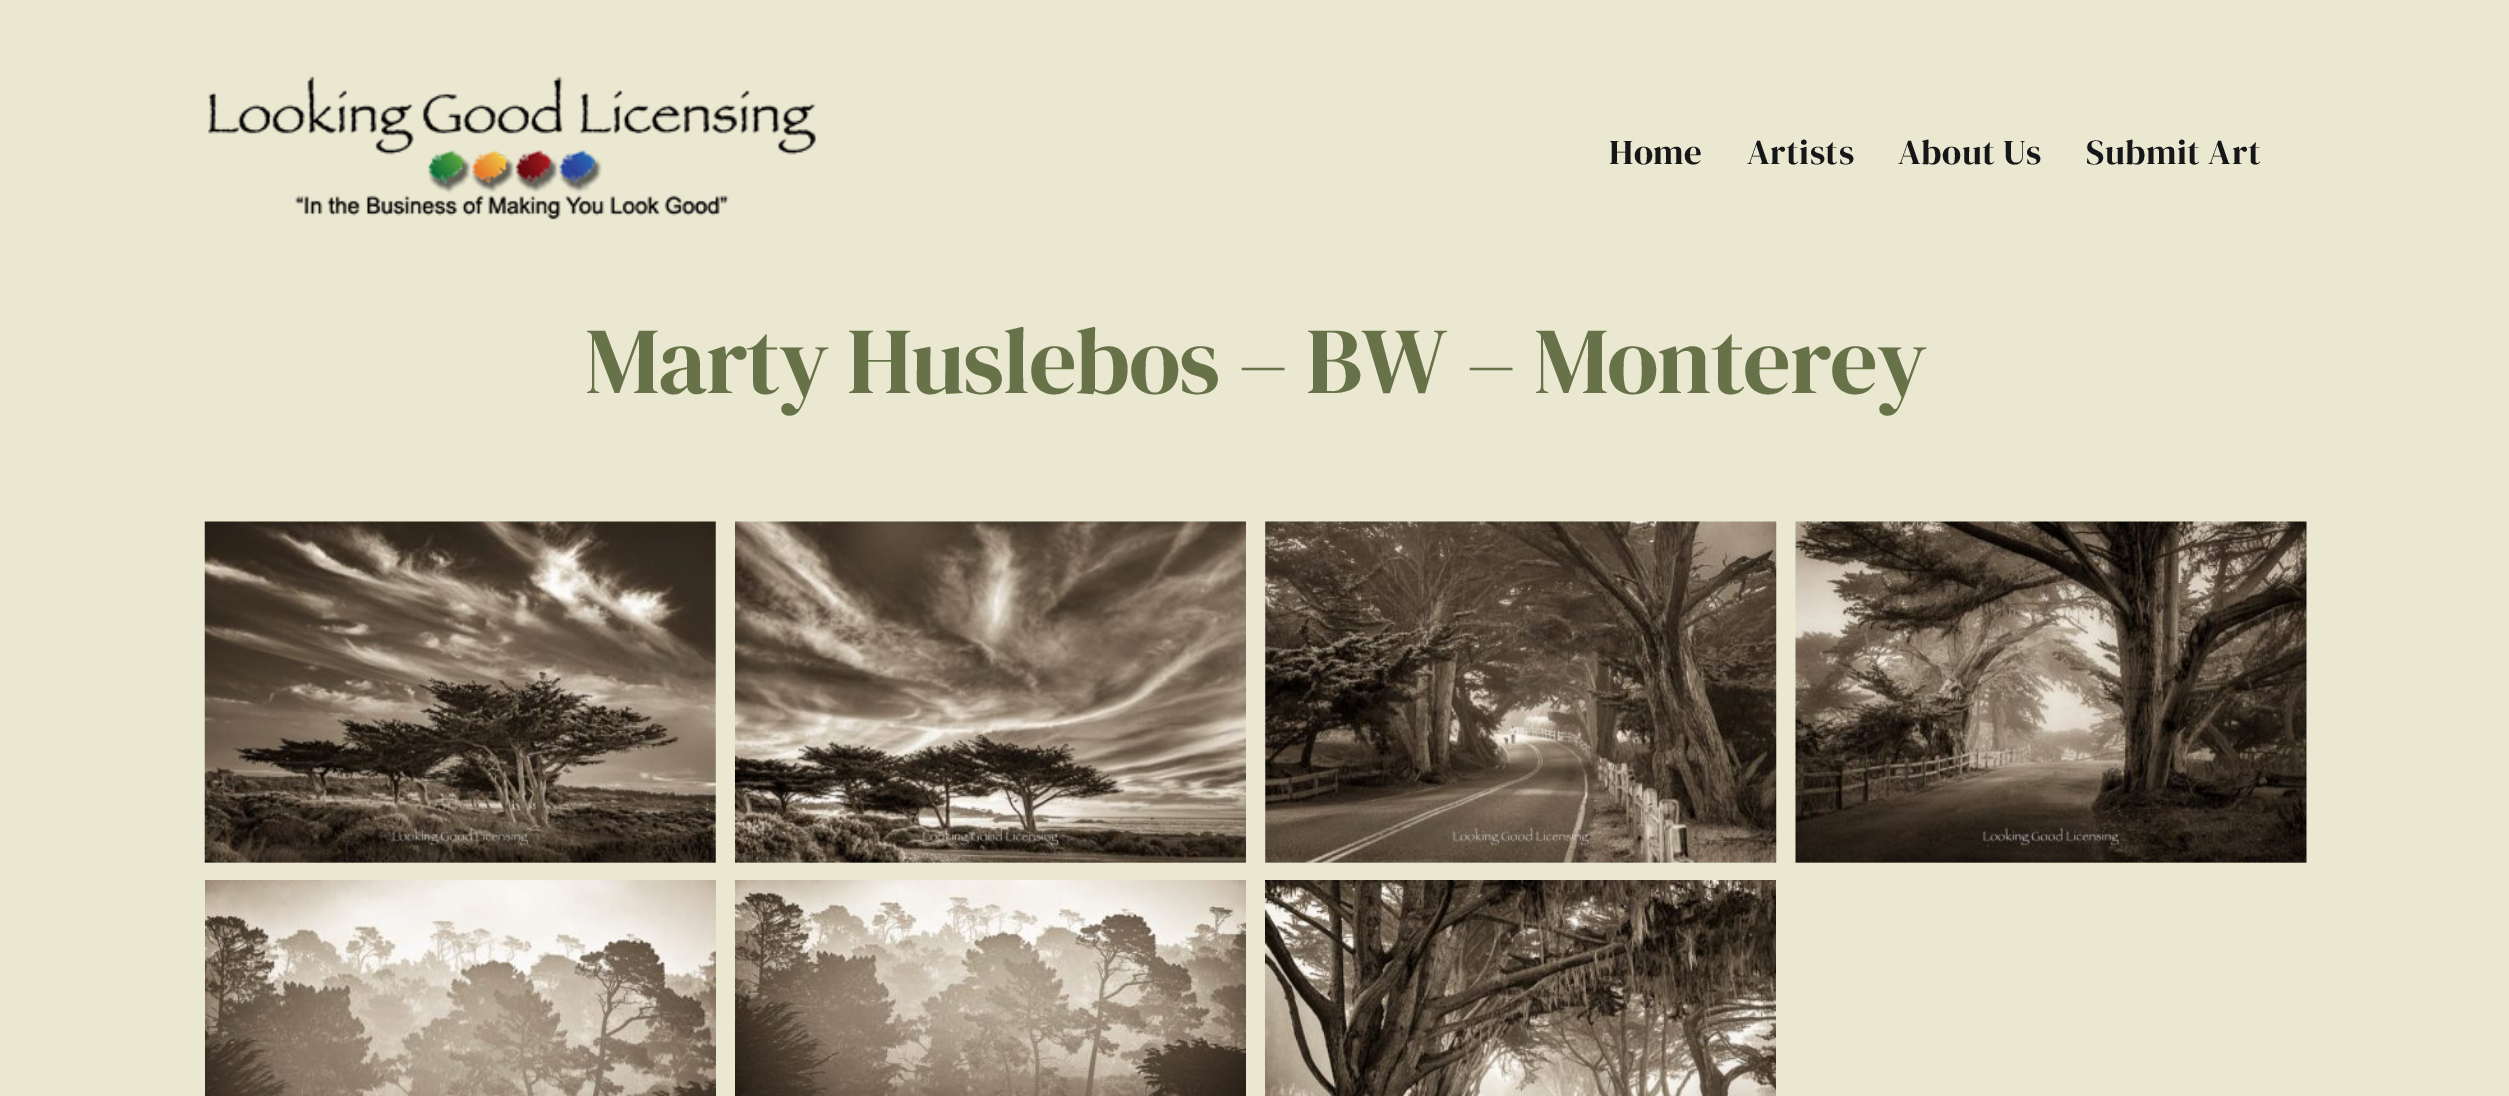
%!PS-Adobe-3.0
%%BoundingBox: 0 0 2509 1096
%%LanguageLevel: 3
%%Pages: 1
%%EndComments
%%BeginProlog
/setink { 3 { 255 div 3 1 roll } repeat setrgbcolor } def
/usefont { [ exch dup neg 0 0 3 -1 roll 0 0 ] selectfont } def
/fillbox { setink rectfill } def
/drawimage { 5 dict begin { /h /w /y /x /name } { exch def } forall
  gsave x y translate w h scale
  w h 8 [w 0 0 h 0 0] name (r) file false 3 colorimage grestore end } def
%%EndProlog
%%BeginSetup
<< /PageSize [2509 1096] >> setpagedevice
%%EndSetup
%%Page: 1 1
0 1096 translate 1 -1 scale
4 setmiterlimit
0 0 2509 1096 234 232 209 fillbox
(assets/img1.rgb) 207 76 609 144 drawimage
/DMSerifDisplay-Regular 35 usefont
20 22 23 setink
1609 164 moveto 0.5 0 (Home) ashow
1747 164 moveto 0.5 0 (Artists) ashow
1898 164 moveto 0.5 0 (About Us) ashow
2086 164 moveto 0.5 0 (Submit Art) ashow
/DMSerifDisplay-Regular 94.5 usefont
103 114 72 setink
585 393 moveto -1.4 0 (Marty Huslebos – BW – Monterey) ashow
(assets/img2.rgb) 204 521 512 342 drawimage
(assets/img3.rgb) 735 521 511 342 drawimage
(assets/img4.rgb) 1265 521 512 342 drawimage
(assets/img5.rgb) 1795 521 512 342 drawimage
(assets/img6.rgb) 205 880 511 216 drawimage
(assets/img7.rgb) 735 880 511 216 drawimage
(assets/img8.rgb) 1265 880 511 216 drawimage
showpage
%%EOF
